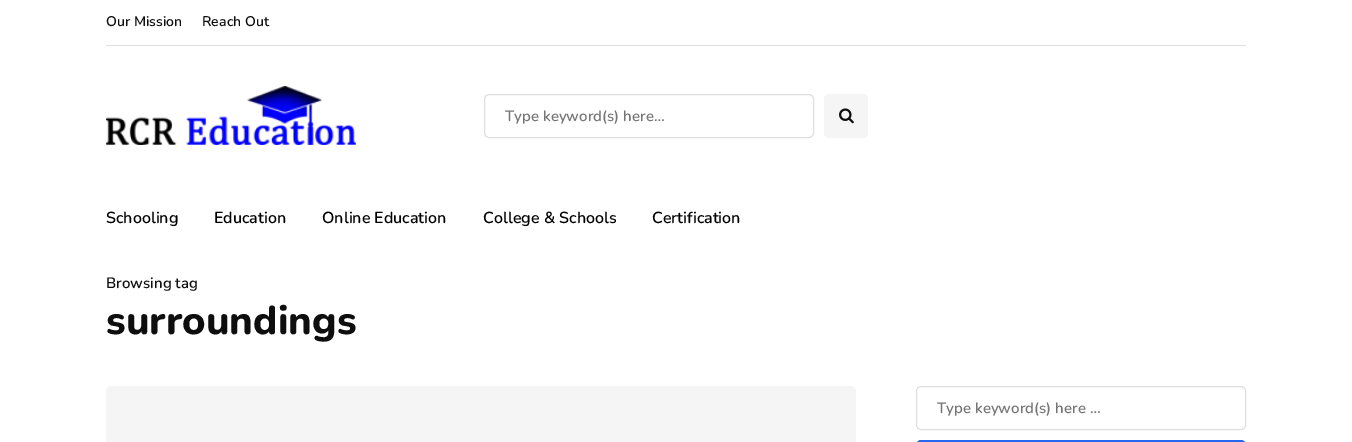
%!PS-Adobe-3.0
%%BoundingBox: 0 0 1352 442
%%LanguageLevel: 3
%%Pages: 1
%%EndComments
%%BeginProlog
/setink { 3 { 255 div 3 1 roll } repeat setrgbcolor } def
/usefont { [ exch dup neg 0 0 3 -1 roll 0 0 ] selectfont } def
/drawtext { setink usefont moveto show } def
/fillbox { setink rectfill } def
/rrect { 5 dict begin { /r /h /w /y /x } { exch def } forall
  x r add y moveto x w add y 2 copy h add r arct x w add y h add x 1 index r arct
  x y h add x y r arct x y 2 copy exch w add exch r arct closepath end } def
/drawimage { 5 dict begin { /h /w /y /x /name } { exch def } forall
  gsave x y translate w h scale
  w h 8 [w 0 0 h 0 0] name (r) file false 3 colorimage grestore end } def
%%EndProlog
%%BeginSetup
<< /PageSize [1352 442] >> setpagedevice
%%EndSetup
%%Page: 1 1
0 442 translate 1 -1 scale
4 setmiterlimit
0 0 1352 442 255 255 255 fillbox
106 45 1140 1 224 222 222 fillbox
(Our Mission) 106 26 /Nunito-SemiBold 14 15 14 14 drawtext
(Reach Out) 202 26 /Nunito-SemiBold 14 15 14 14 drawtext
(assets/img1.rgb) 106 86 250 59 drawimage
224 222 222 setink
484.5 94.5 329 43 4.5 rrect stroke
(Type keyword\(s\) here…) 505 121 /Nunito-SemiBold 15 117 117 117 drawtext
245 245 245 setink
824 94 44 44 5 rrect fill
(assets/img2.rgb) 839 108 15 16 drawimage
(Schooling) 106 223 /Nunito-SemiBold 16 0 0 0 drawtext
(Education) 214 223 /Nunito-SemiBold 16 0 0 0 drawtext
(Online Education) 322 223 /Nunito-SemiBold 16 0 0 0 drawtext
(College & Schools) 483 223 /Nunito-SemiBold 16 0 0 0 drawtext
(Certification) 652 223 /Nunito-SemiBold 16 0 0 0 drawtext
(Browsing tag) 106 288 /Nunito-SemiBold 15 15 14 14 drawtext
(surroundings) 106 334 /Nunito-ExtraBold 40 15 14 14 drawtext
245 245 245 setink
106 386 750 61 5 rrect fill
224 222 222 setink
916.5 386.5 329 43 4.5 rrect stroke
(Type keyword\(s\) here …) 937 413 /Nunito-SemiBold 15 117 117 117 drawtext
37 104 239 setink
916.5 440.5 329 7 4.5 rrect gsave fill grestore
stroke
showpage
%%EOF
